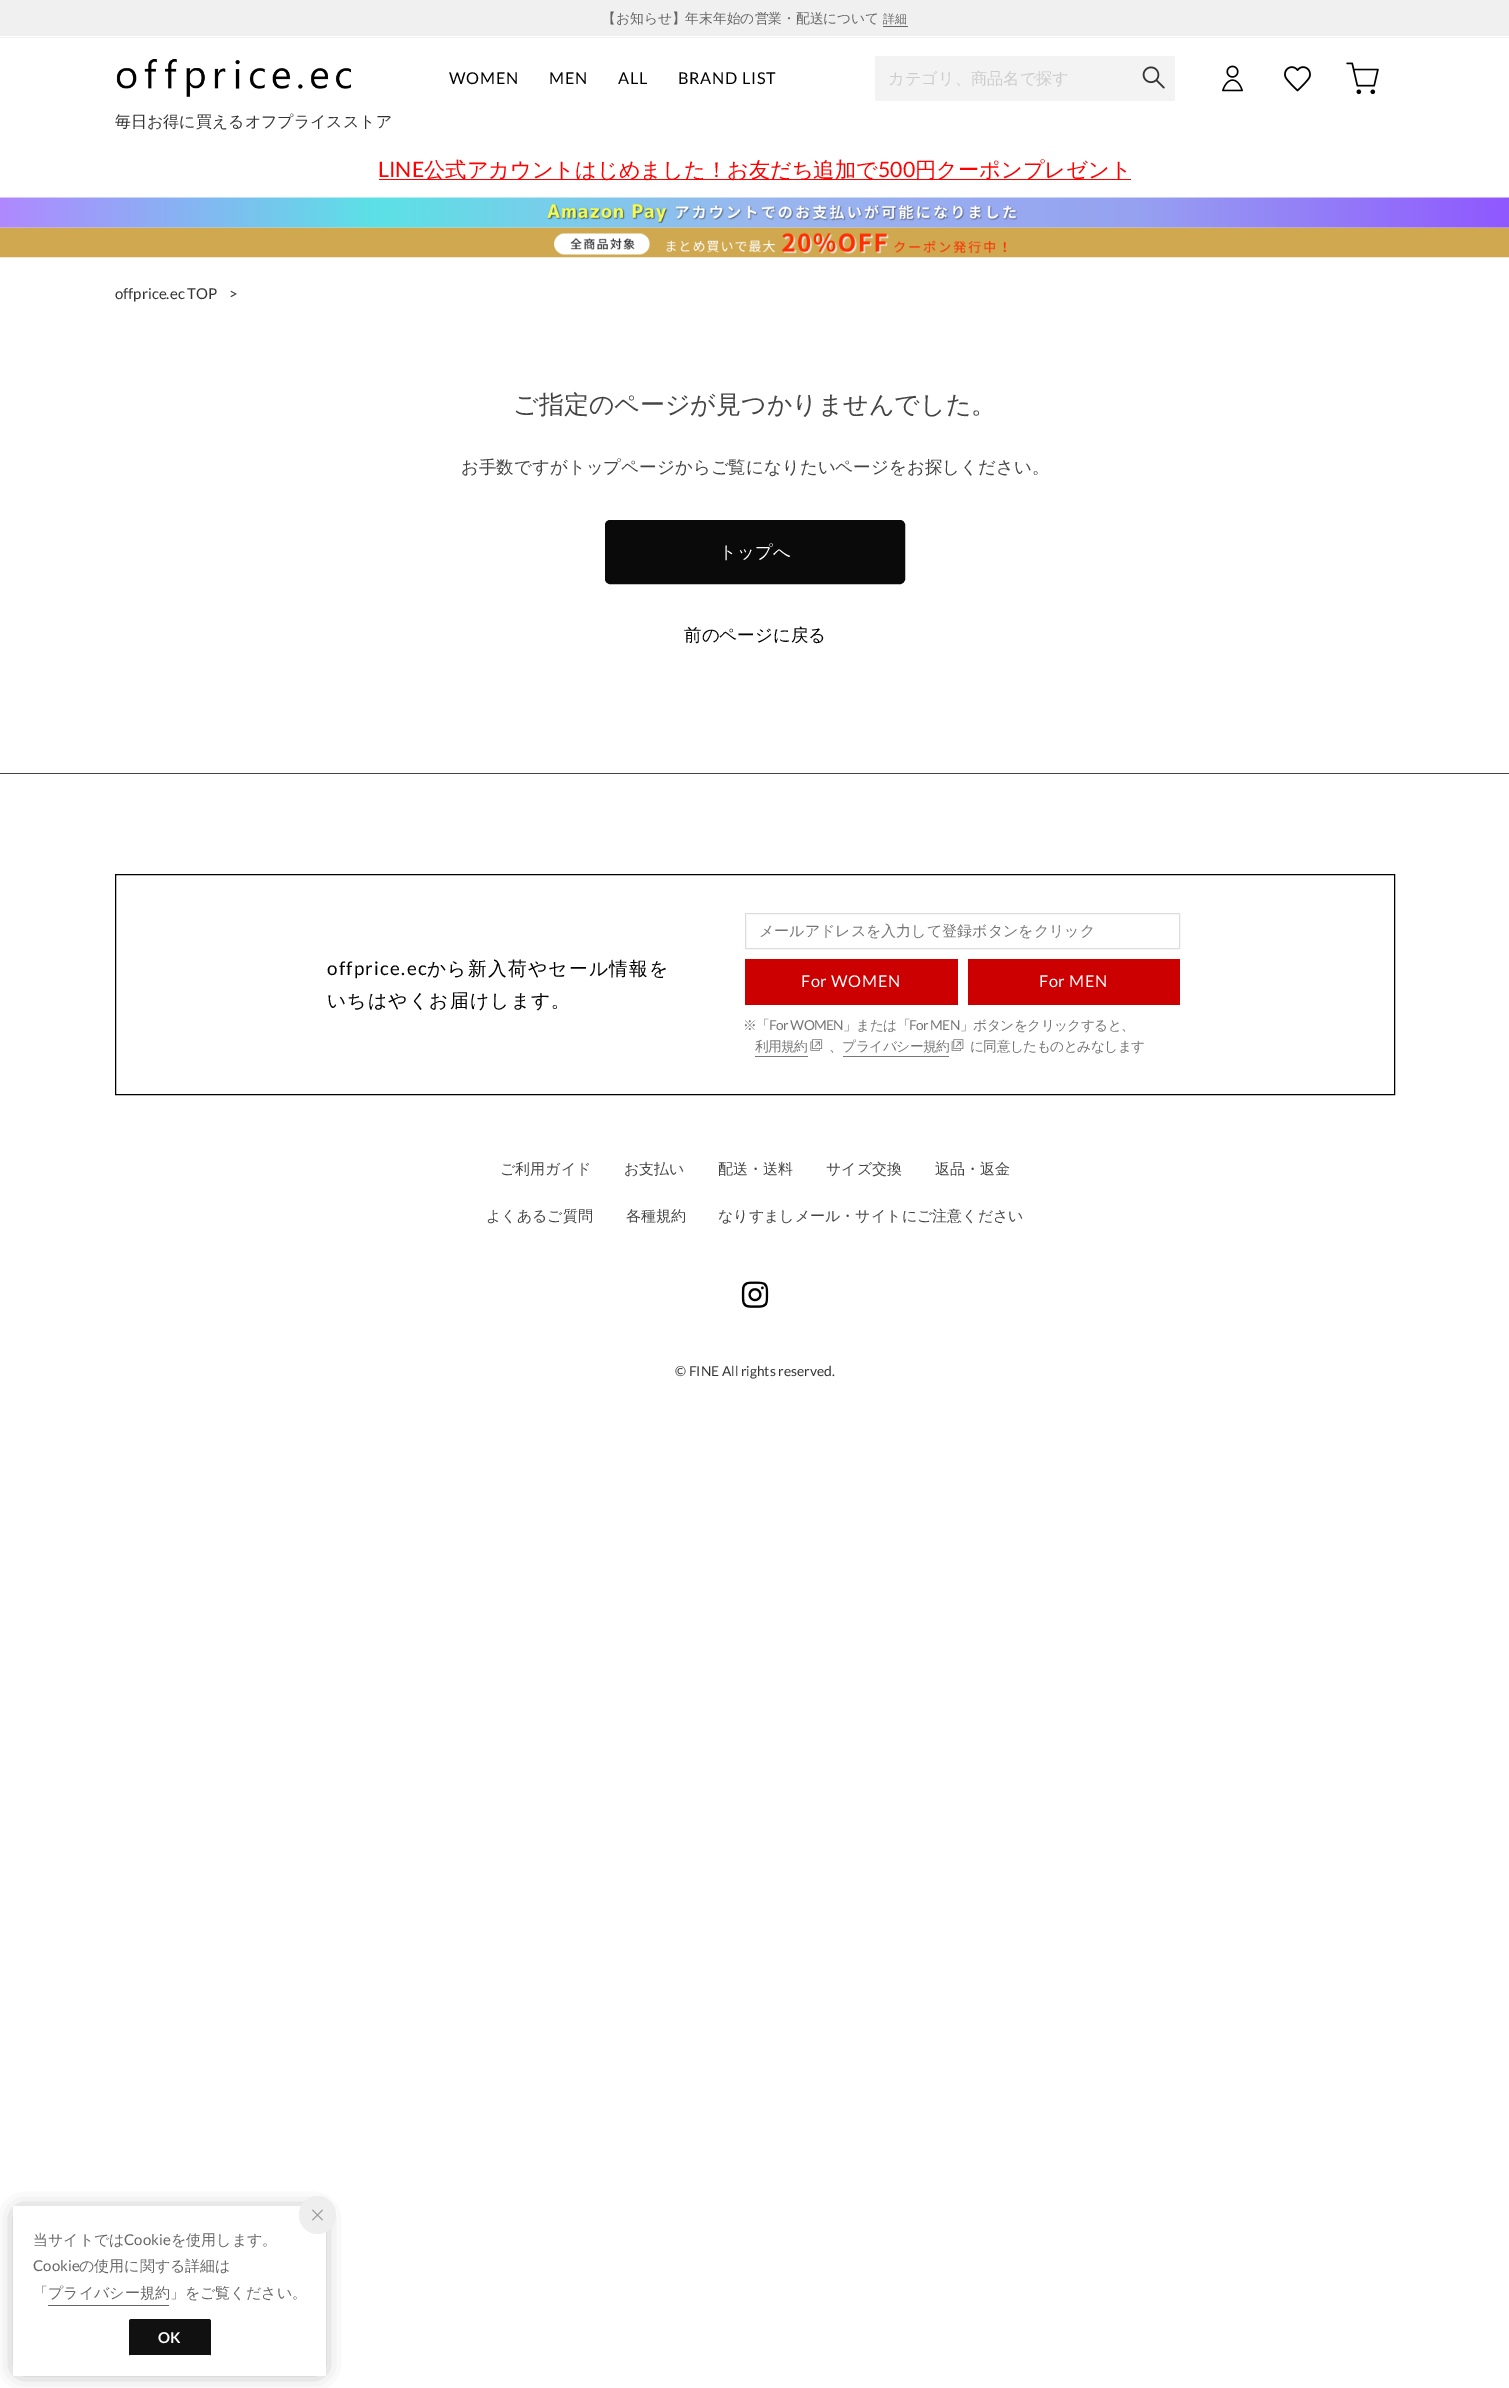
%!PS-Adobe-3.0
%%BoundingBox: 0 0 1509 2388
%%LanguageLevel: 3
%%Pages: 1
%%EndComments
%%BeginProlog
/setink { 3 { 255 div 3 1 roll } repeat setrgbcolor } def
/usefont { [ exch dup neg 0 0 3 -1 roll 0 0 ] selectfont } def
/drawtext { setink usefont moveto show } def
/fillbox { setink rectfill } def
/setalpha { dup .setfillconstantalpha .setstrokeconstantalpha } def
/rrect { 5 dict begin { /r /h /w /y /x } { exch def } forall
  x r add y moveto x w add y 2 copy h add r arct x w add y h add x 1 index r arct
  x y h add x y r arct x y 2 copy exch w add exch r arct closepath end } def
/softshadow { 12 dict begin { /a /b /q /h /w /y /x } { exch def } forall gsave /was 0 def
  9 -2 -9 { dup b mul 4 div /e exch def 1 sub .425 mul 2.718 exch exp 1 add a .99 .min exch div /now exch def
    1 1 now sub 1 was sub div sub setalpha /was now def
    w h .min e 2 mul add 0 gt { x e sub y e sub w e 2 mul add h e 2 mul add
      q e add b .6 mul add w h .min 2 div e add .min 0 .max rrect fill } if } for grestore end } def
/drawimage { 5 dict begin { /h /w /y /x /name } { exch def } forall
  gsave x y translate w h scale
  w h 8 [w 0 0 h 0 0] name (r) file false 3 colorimage grestore end } def
%%EndProlog
%%BeginSetup
<< /PageSize [1509 2388] /PageUsesTransparency true >> setpagedevice
%%EndSetup
%%Page: 1 1
0 .pushpdf14devicefilter
0 2388 translate 1 -1 scale
4 setmiterlimit
0 0 1509 2388 255 255 255 fillbox
0 0 1509 38 240 240 240 fillbox
0 36 1509 1 255 255 255 fillbox
(【お知らせ】年末年始の営業・配送について) 602 23 /WenQuanYiZenHei-Medium 13.75 102 102 102 drawtext
(詳細) 883 23 /WenQuanYiZenHei-Medium 12 102 102 102 drawtext
883 26 25 1 102 102 102 fillbox
(assets/img1.rgb) 116 59 235 38 drawimage
/Lato-Regular 16.25 usefont
0 0 0 setink
449 84 moveto 0.75 0 (WOMEN) ashow
549 84 moveto 0.75 0 (MEN) ashow
618 84 moveto 0.75 0 (ALL) ashow
678 84 moveto 0.75 0 (BRAND LIST) ashow
875 56 300 45 243 243 243 fillbox
(カテゴリ、商品名で探す) 888 84 /WenQuanYiZenHei-Medium 16.25 204 204 204 drawtext
(assets/img2.rgb) 1142 66 23 23 drawimage
(assets/img3.rgb) 1222 65 21 27 drawimage
(assets/img4.rgb) 1284 66 27 26 drawimage
(assets/img5.rgb) 1346 62 33 33 drawimage
(毎日お得に買えるオフプライスストア) 115 127 /WenQuanYiZenHei-Medium 16 51 51 51 drawtext
(LINE) 378 177 /Lato-Regular 21.25 255 0 0 drawtext
379 179 752 1 255 0 0 fillbox
(公式アカウントはじめました！お友だち追加で) 424 177 /WenQuanYiZenHei-Medium 21.25 255 0 0 drawtext
(500) 878 177 /Lato-Regular 21.25 255 0 0 drawtext
(円クーポンプレゼント) 915 177 /WenQuanYiZenHei-Medium 21.25 255 0 0 drawtext
(assets/img7.rgb) 0 227 1509 31 drawimage
(assets/img6.rgb) 0 197 1509 31 drawimage
(offprice.ec TOP) 115 299 /Lato-Regular 15 51 51 51 drawtext
(>) 229 299 /Lato-Regular 15 51 51 51 drawtext
(ご指定のページが見つかりませんでした。) 513 413 /WenQuanYiZenHei-Medium 25 68 68 68 drawtext
(お手数ですがトップページからご覧になりたいページをお探しください。) 461 473 /WenQuanYiZenHei-Medium 17.5 68 68 68 drawtext
10 10 10 setink
605.5 520.5 299 63 4.5 rrect gsave fill grestore
stroke
(トップへ) 719 558 /WenQuanYiZenHei-Medium 17.5 255 255 255 drawtext
(前のページに戻る) 684 641 /WenQuanYiZenHei-Medium 17.5 0 0 0 drawtext
0 773 1509 1 68 68 68 fillbox
0 0 0 setink
115.5 874.5 1279 220 rectstroke
/Lato-Regular 18.75 usefont
327 975 moveto 1.25 0 (offprice.ec) ashow
/WenQuanYiZenHei-Medium 18.75 usefont
427 975 moveto 1.25 0 (から新入荷やセール情報を) ashow
327 1007 moveto 1.25 0 (いちはやくお届けします。) ashow
221 221 221 setink
745.5 913.5 434 35 rectstroke
(メールアドレスを入力して登録ボタンをクリック) 759 936 /WenQuanYiZenHei-Medium 15 117 117 117 drawtext
745 959 213 46 204 0 0 fillbox
/Lato-Regular 16.25 usefont
255 255 255 setink
801 987 moveto 0.6 0 (For WOMEN) ashow
968 959 212 46 204 0 0 fillbox
255 255 255 setink
1039 987 moveto 0.6 0 (For MEN) ashow
/WenQuanYiZenHei-Medium 13.75 usefont
117 117 117 setink
743 1030 moveto -0.6 0 (※「) ashow
/Lato-Regular 13.75 usefont
769 1030 moveto -0.6 0 (For WOMEN) ashow
/WenQuanYiZenHei-Medium 13.75 usefont
843 1030 moveto -0.6 0 (」または「) ashow
/Lato-Regular 13.75 usefont
909 1030 moveto -0.6 0 (For MEN) ashow
/WenQuanYiZenHei-Medium 13.75 usefont
960 1030 moveto -0.6 0 (」ボタンをクリックすると、) ashow
755 1051 moveto -0.6 0 (利用規約) ashow
755 1056 53 1 119 119 119 fillbox
(assets/img8.rgb) 810 1039 13 12 drawimage
117 117 117 setink
829 1051 moveto -0.6 0 (、プライバシー規約) ashow
(assets/img9.rgb) 951 1039 13 12 drawimage
970 1051 moveto -0.6 0 (に同意したものとみなします) ashow
843 1056 106 1 119 119 119 fillbox
(ご利用ガイド) 500 1174 /WenQuanYiZenHei-Medium 15 68 68 68 drawtext
(お支払い) 624 1174 /WenQuanYiZenHei-Medium 15 68 68 68 drawtext
(配送・送料) 718 1174 /WenQuanYiZenHei-Medium 15 68 68 68 drawtext
(サイズ交換) 826 1174 /WenQuanYiZenHei-Medium 15 68 68 68 drawtext
(返品・返金) 935 1174 /WenQuanYiZenHei-Medium 15 68 68 68 drawtext
(よくあるご質問) 486 1221 /WenQuanYiZenHei-Medium 15 68 68 68 drawtext
(各種規約) 626 1221 /WenQuanYiZenHei-Medium 15 68 68 68 drawtext
(なりすましメール・サイトにご注意ください) 718 1221 /WenQuanYiZenHei-Medium 15 68 68 68 drawtext
(assets/img10.rgb) 741 1281 28 27 drawimage
(© FINE All rights reserved.) 675 1376 /Lato-Regular 13.75 51 51 51 drawtext
0 0 0 setink
20 2214 299 155 0 10 0.6 softshadow
13 2206 313 170 255 255 255 fillbox
238 238 238 setink
299 2196 37 38 18.5 rrect fill
(assets/img11.rgb) 312 2209 11 12 drawimage
(当サイトでは) 33 2245 /WenQuanYiZenHei-Medium 15 102 102 102 drawtext
(Cookie) 124 2245 /Lato-Regular 15 102 102 102 drawtext
(を使用します。) 171 2245 /WenQuanYiZenHei-Medium 15 102 102 102 drawtext
(Cookie) 33 2271 /Lato-Regular 15 102 102 102 drawtext
(の使用に関する詳細は) 79 2271 /WenQuanYiZenHei-Medium 15 102 102 102 drawtext
(「プライバシー規約」をご覧ください。) 33 2298 /WenQuanYiZenHei-Medium 15 102 102 102 drawtext
48 2305 121 1 102 102 102 fillbox
17 17 17 setink
129 2319 82 37 2.5 rrect fill
130 2355 80 1 255 255 255 fillbox
(OK) 158 2343 /Lato-Bold 15 255 255 255 drawtext
.poppdf14devicefilter showpage
%%EOF
